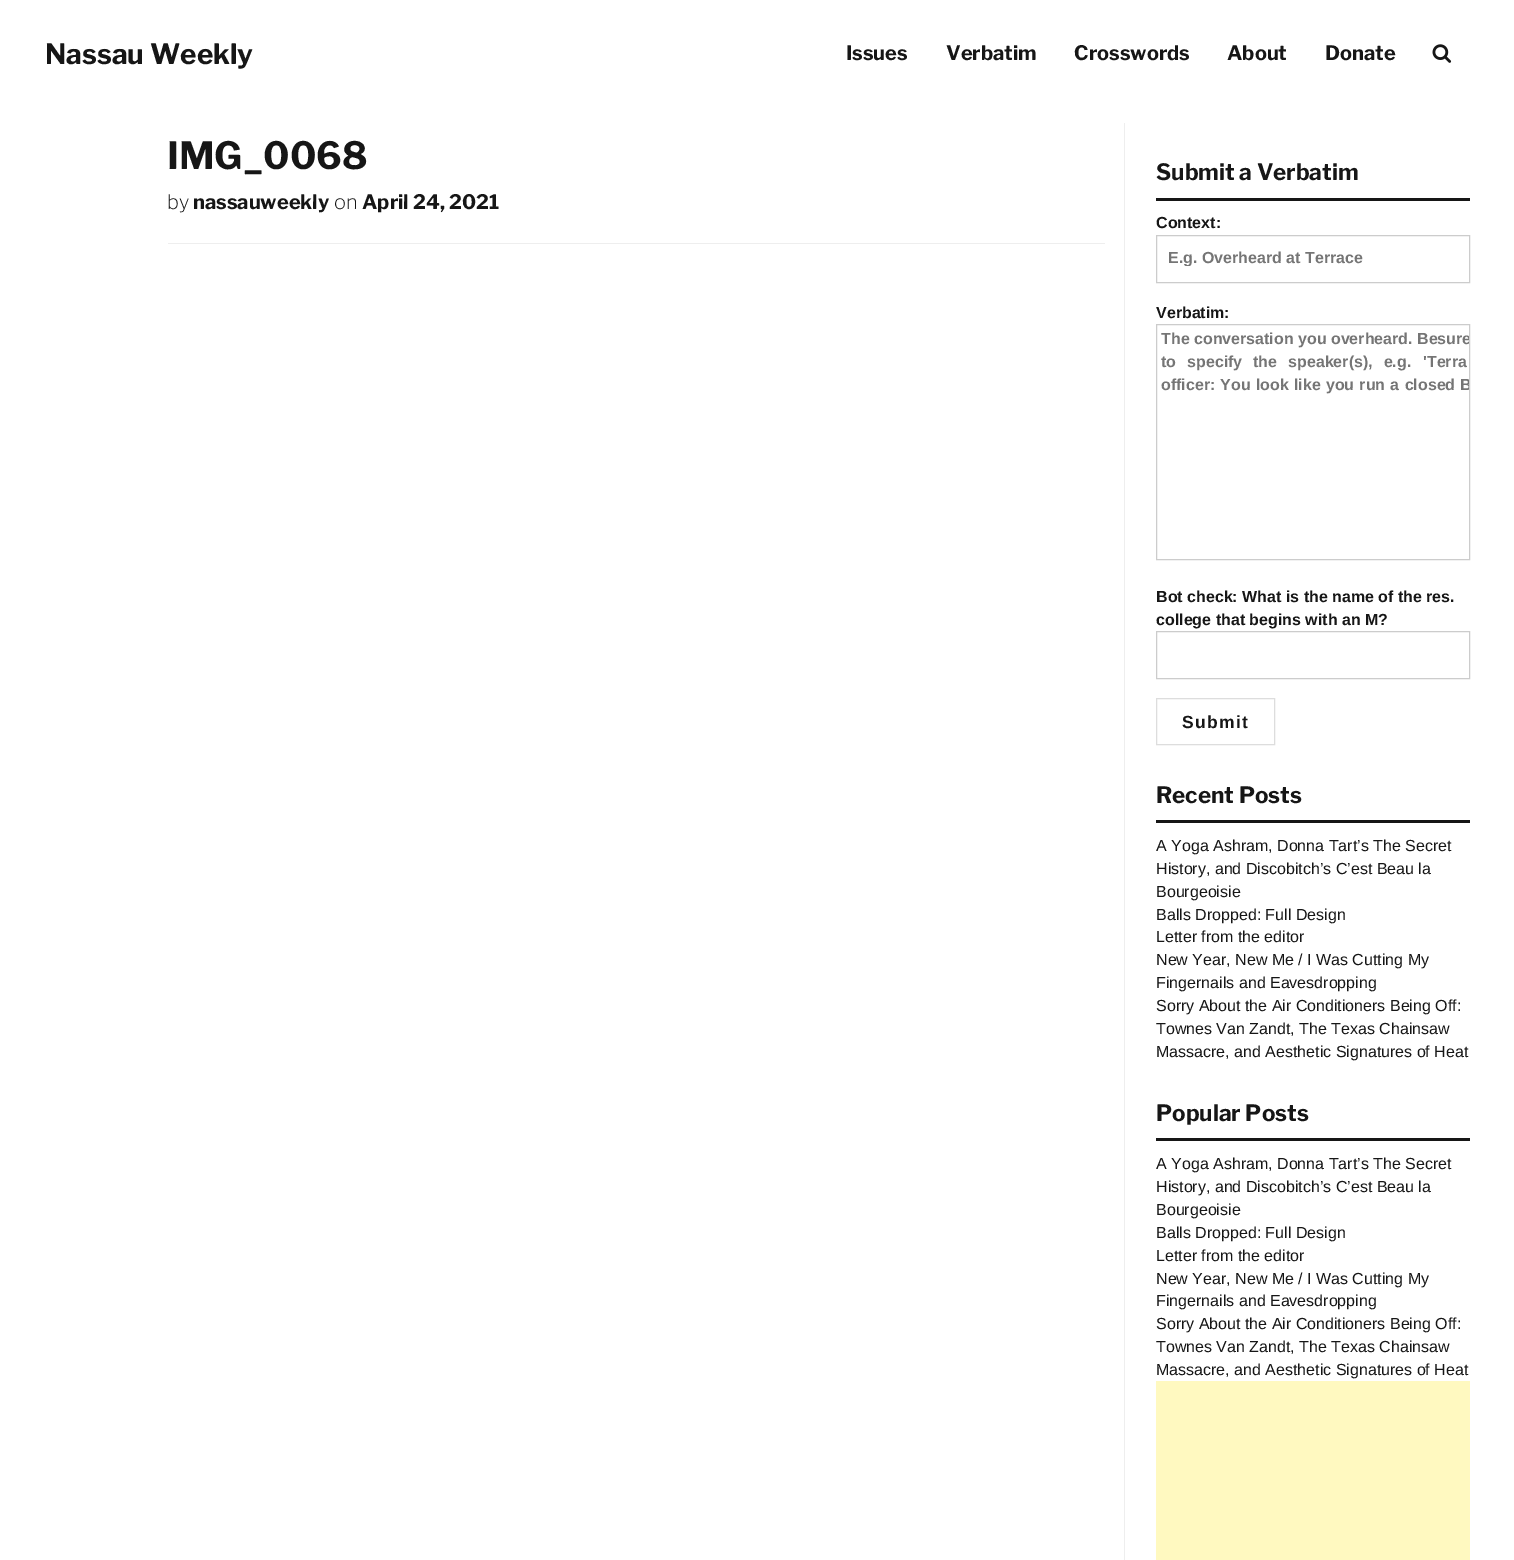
%!PS-Adobe-3.0
%%BoundingBox: 0 0 1514 1560
%%LanguageLevel: 3
%%Pages: 1
%%EndComments
%%BeginProlog
/setink { 3 { 255 div 3 1 roll } repeat setrgbcolor } def
/usefont { [ exch dup neg 0 0 3 -1 roll 0 0 ] selectfont } def
/drawtext { setink usefont moveto show } def
/fillbox { setink rectfill } def
/drawimage { 5 dict begin { /h /w /y /x /name } { exch def } forall
  gsave x y translate w h scale
  w h 8 [w 0 0 h 0 0] name (r) file false 3 colorimage grestore end } def
%%EndProlog
%%BeginSetup
<< /PageSize [1514 1560] >> setpagedevice
%%EndSetup
%%Page: 1 1
0 1560 translate 1 -1 scale
4 setmiterlimit
0 0 1514 1560 255 255 255 fillbox
(Nassau Weekly) 45 64 /LibreFranklin-Bold 28 22 22 22 drawtext
(Issues) 846 60 /LibreFranklin-Bold 20 22 22 22 drawtext
(Verbatim) 946 60 /LibreFranklin-Bold 20 22 22 22 drawtext
(Crosswords) 1074 60 /LibreFranklin-Bold 20 22 22 22 drawtext
(About) 1227 60 /LibreFranklin-Bold 20 22 22 22 drawtext
(Donate) 1325 60 /LibreFranklin-Bold 20 22 22 22 drawtext
(assets/img1.rgb) 1432 44 20 19 drawimage
(IMG_0068) 167 169 /LibreFranklin-Bold 37.5 22 22 22 drawtext
(by) 167 209 /LibreFranklin-ExtraLight 20 22 22 22 drawtext
(nassauweekly) 193 209 /LibreFranklin-Bold 20 22 22 22 drawtext
(on) 334 209 /LibreFranklin-ExtraLight 20 22 22 22 drawtext
(April 24, 2021) 362 209 /LibreFranklin-Bold 20 22 22 22 drawtext
168 243 937 1 238 238 238 fillbox
1124 123 1 1437 238 238 238 fillbox
1156 198 314 3 22 22 22 fillbox
(Submit a Verbatim) 1156 180 /LibreFranklin-Bold 22.5 22 22 22 drawtext
(Context:) 1156 228 /LiberationSans-Bold 16 22 22 22 drawtext
204 204 204 setink
1156.5 235.5 313 47 rectstroke
gsave
1169 248 289 18 rectclip
(E.g. Overheard at Terrace) 1168 263 /LiberationSans-Bold 16 117 117 117 drawtext
grestore
(Verbatim:) 1156 318 /LiberationSans-Bold 16 22 22 22 drawtext
204 204 204 setink
1156.5 324.5 313 235 rectstroke
(The conversation you overheard. Be) 1161 344 /LiberationSans-Bold 16 117 117 117 drawtext
gsave
1158 325 311 234 rectclip
(sure) 1437 344 /LiberationSans-Bold 16 117 117 117 drawtext
grestore
1161 367 moveto 6.5 0 32 (to specify the speaker\(s\), e.g.) widthshow
('Terra) 1423 367 /LiberationSans-Bold 16 117 117 117 drawtext
1161 390 moveto 0.75 0 32 (officer: You look like you run a closed) widthshow
gsave
1158 325 311 234 rectclip
(B) 1460 390 /LiberationSans-Bold 16 117 117 117 drawtext
grestore
(Bot check: What is the name of the res.) 1156 602 /LiberationSans-Bold 16 22 22 22 drawtext
(college that begins with an M?) 1156 625 /LiberationSans-Bold 16 22 22 22 drawtext
204 204 204 setink
1156.5 631.5 313 47 rectstroke
221 221 221 setink
1156.5 698.5 118 46 rectstroke
/LiberationSans-Bold 17.5 usefont
22 22 22 setink
1182 728 moveto 1.25 0 (Submit) ashow
1156 820 314 3 22 22 22 fillbox
(Recent Posts) 1156 803 /LibreFranklin-Bold 22.5 22 22 22 drawtext
(A Yoga Ashram, Donna Tart’s The Secret) 1156 851 /LiberationSans-Regular 16 22 22 22 drawtext
(History, and Discobitch’s C’est Beau la) 1156 874 /LiberationSans-Regular 16 22 22 22 drawtext
(Bourgeoisie) 1156 897 /LiberationSans-Regular 16 22 22 22 drawtext
(Balls Dropped: Full Design) 1156 920 /LiberationSans-Regular 16 22 22 22 drawtext
(Letter from the editor) 1156 942 /LiberationSans-Regular 16 22 22 22 drawtext
(New Year, New Me / I Was Cutting My) 1156 965 /LiberationSans-Regular 16 22 22 22 drawtext
(Fingernails and Eavesdropping) 1156 988 /LiberationSans-Regular 16 22 22 22 drawtext
(Sorry About the Air Conditioners Being Off:) 1156 1011 /LiberationSans-Regular 16 22 22 22 drawtext
(Townes Van Zandt, The Texas Chainsaw) 1156 1034 /LiberationSans-Regular 16 22 22 22 drawtext
(Massacre, and Aesthetic Signatures of Heat) 1156 1057 /LiberationSans-Regular 16 22 22 22 drawtext
1156 1138 314 3 22 22 22 fillbox
(Popular Posts) 1156 1121 /LibreFranklin-Bold 22.5 22 22 22 drawtext
(A Yoga Ashram, Donna Tart’s The Secret) 1156 1169 /LiberationSans-Regular 16 22 22 22 drawtext
(History, and Discobitch’s C’est Beau la) 1156 1192 /LiberationSans-Regular 16 22 22 22 drawtext
(Bourgeoisie) 1156 1215 /LiberationSans-Regular 16 22 22 22 drawtext
(Balls Dropped: Full Design) 1156 1238 /LiberationSans-Regular 16 22 22 22 drawtext
(Letter from the editor) 1156 1261 /LiberationSans-Regular 16 22 22 22 drawtext
(New Year, New Me / I Was Cutting My) 1156 1284 /LiberationSans-Regular 16 22 22 22 drawtext
(Fingernails and Eavesdropping) 1156 1306 /LiberationSans-Regular 16 22 22 22 drawtext
(Sorry About the Air Conditioners Being Off:) 1156 1329 /LiberationSans-Regular 16 22 22 22 drawtext
(Townes Van Zandt, The Texas Chainsaw) 1156 1352 /LiberationSans-Regular 16 22 22 22 drawtext
(Massacre, and Aesthetic Signatures of Heat) 1156 1375 /LiberationSans-Regular 16 22 22 22 drawtext
1156 1381 314 179 255 249 192 fillbox
showpage
%%EOF
